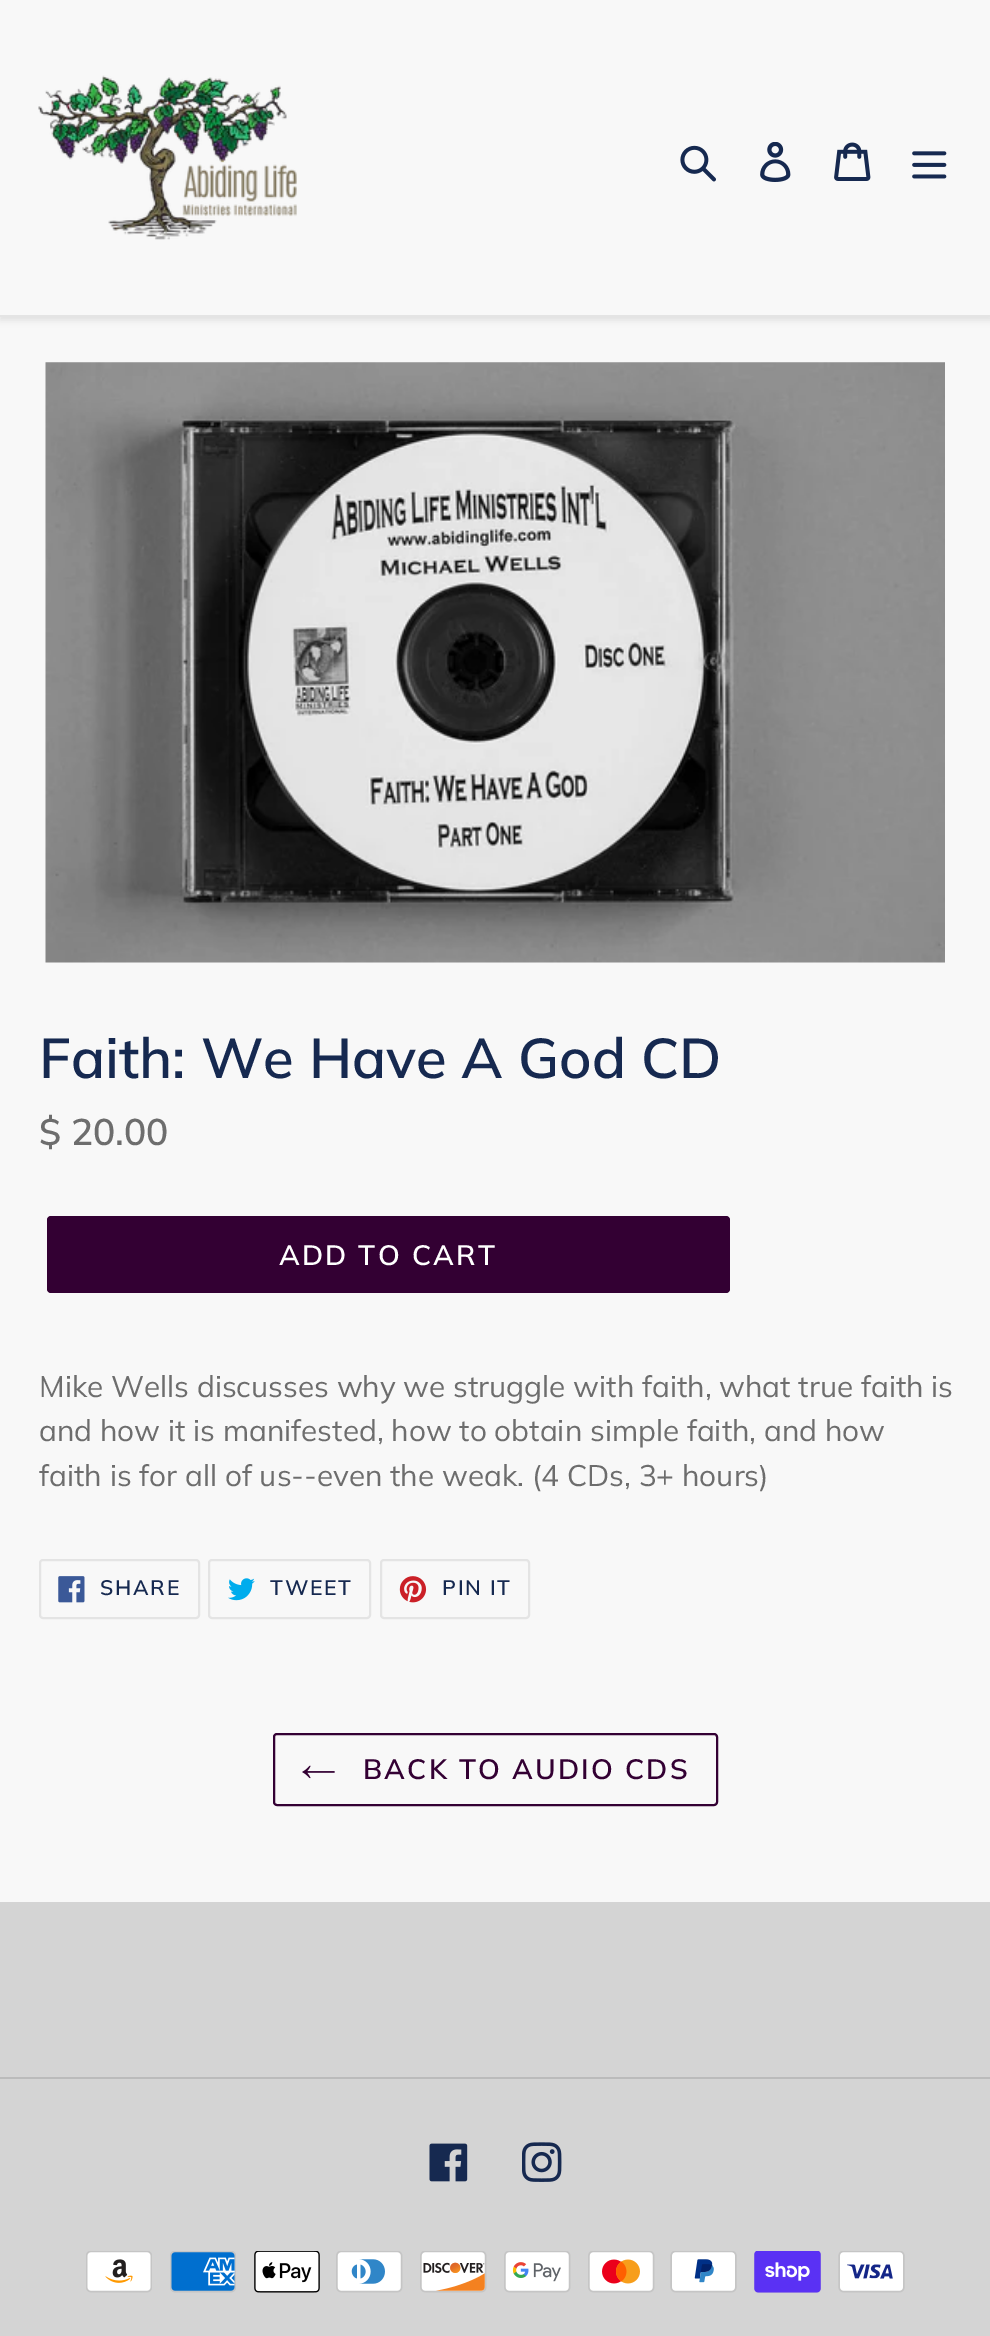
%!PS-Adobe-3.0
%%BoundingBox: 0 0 990 2336
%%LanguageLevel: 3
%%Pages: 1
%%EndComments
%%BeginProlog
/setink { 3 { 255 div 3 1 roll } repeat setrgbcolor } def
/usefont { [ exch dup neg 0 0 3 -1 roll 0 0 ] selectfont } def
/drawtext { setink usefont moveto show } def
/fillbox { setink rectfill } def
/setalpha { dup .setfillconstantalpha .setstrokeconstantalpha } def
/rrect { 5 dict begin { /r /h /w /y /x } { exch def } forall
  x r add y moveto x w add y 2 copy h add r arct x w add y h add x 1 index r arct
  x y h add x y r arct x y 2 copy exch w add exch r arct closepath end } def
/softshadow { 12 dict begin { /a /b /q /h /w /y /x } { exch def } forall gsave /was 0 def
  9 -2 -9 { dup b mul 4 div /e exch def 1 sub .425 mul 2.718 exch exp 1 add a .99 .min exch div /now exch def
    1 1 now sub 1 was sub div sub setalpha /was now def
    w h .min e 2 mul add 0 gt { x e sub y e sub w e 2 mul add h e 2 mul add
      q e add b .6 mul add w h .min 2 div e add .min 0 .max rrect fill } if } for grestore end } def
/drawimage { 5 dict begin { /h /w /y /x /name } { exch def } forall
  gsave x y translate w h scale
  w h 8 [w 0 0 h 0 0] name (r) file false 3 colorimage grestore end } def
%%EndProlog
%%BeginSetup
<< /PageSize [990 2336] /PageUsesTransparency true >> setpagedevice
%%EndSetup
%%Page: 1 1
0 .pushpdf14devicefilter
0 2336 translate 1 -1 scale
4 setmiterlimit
0 0 990 2336 248 248 248 fillbox
0 0 0 setink
0 4 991 316 0 3.5 0.1 softshadow
0 0 990 315 248 248 248 fillbox
0 315 990 2 228 228 228 fillbox
(assets/img1.rgb) 38 75 259 165 drawimage
(assets/img2.rgb) 680 145 36 37 drawimage
(assets/img3.rgb) 760 142 31 40 drawimage
(assets/img4.rgb) 834 142 37 39 drawimage
(assets/img5.rgb) 912 151 35 28 drawimage
(assets/img6.rgb) 45 362 900 601 drawimage
(Faith: We Have A God CD) 39 1078 /Muli-SemiBold 56 22 41 80 drawtext
($ 20.00) 39 1145 /Muli-SemiBold 37 109 109 109 drawtext
51 0 51 setink
47 1216 683 77 4 rrect fill
/Muli-SemiBold 28 usefont
255 255 255 setink
279 1265 moveto 2.25 0 (ADD TO CART) ashow
(Mike Wells discusses why we struggle with faith, what true faith is) 39 1397 /Muli-Regular 29.75 109 109 109 drawtext
(and how it is manifested, how to obtain simple faith, and how) 39 1441 /Muli-Regular 29.75 109 109 109 drawtext
(faith is for all of us--even the weak. \(4 CDs, 3+ hours\)) 39 1486 /Muli-Regular 29.75 109 109 109 drawtext
228 228 228 setink
2 setlinewidth
40 1560 159 58 3 rrect stroke
(assets/img7.rgb) 58 1576 27 27 drawimage
/Muli-SemiBold 21 usefont
22 41 80 setink
100 1595 moveto 1.75 0 (SHARE) ashow
228 228 228 setink
209 1560 161 58 3 rrect stroke
(assets/img8.rgb) 228 1578 27 23 drawimage
22 41 80 setink
270 1595 moveto 1.75 0 (TWEET) ashow
228 228 228 setink
381 1560 148 58 3 rrect stroke
(assets/img9.rgb) 399 1576 28 27 drawimage
22 41 80 setink
442 1595 moveto 1.75 0 (PIN IT) ashow
51 0 51 setink
274 1734 443 71 3 rrect stroke
(assets/img10.rgb) 302 1765 33 14 drawimage
/Muli-SemiBold 28 usefont
363 1779 moveto 2.25 0 (BACK TO AUDIO CDS) ashow
0 1902 990 434 212 212 212 fillbox
0 2077 990 2 187 187 187 fillbox
(assets/img11.rgb) 429 2143 39 39 drawimage
(assets/img12.rgb) 522 2142 40 40 drawimage
(assets/img13.rgb) 86 2251 66 42 drawimage
(assets/img14.rgb) 170 2251 66 42 drawimage
(assets/img15.rgb) 254 2251 66 42 drawimage
(assets/img16.rgb) 336 2251 67 42 drawimage
(assets/img17.rgb) 420 2251 67 42 drawimage
(assets/img18.rgb) 504 2251 67 42 drawimage
(assets/img19.rgb) 588 2251 67 42 drawimage
(assets/img20.rgb) 670 2251 67 42 drawimage
(assets/img21.rgb) 754 2251 67 42 drawimage
(assets/img22.rgb) 838 2251 67 42 drawimage
.poppdf14devicefilter showpage
%%EOF
